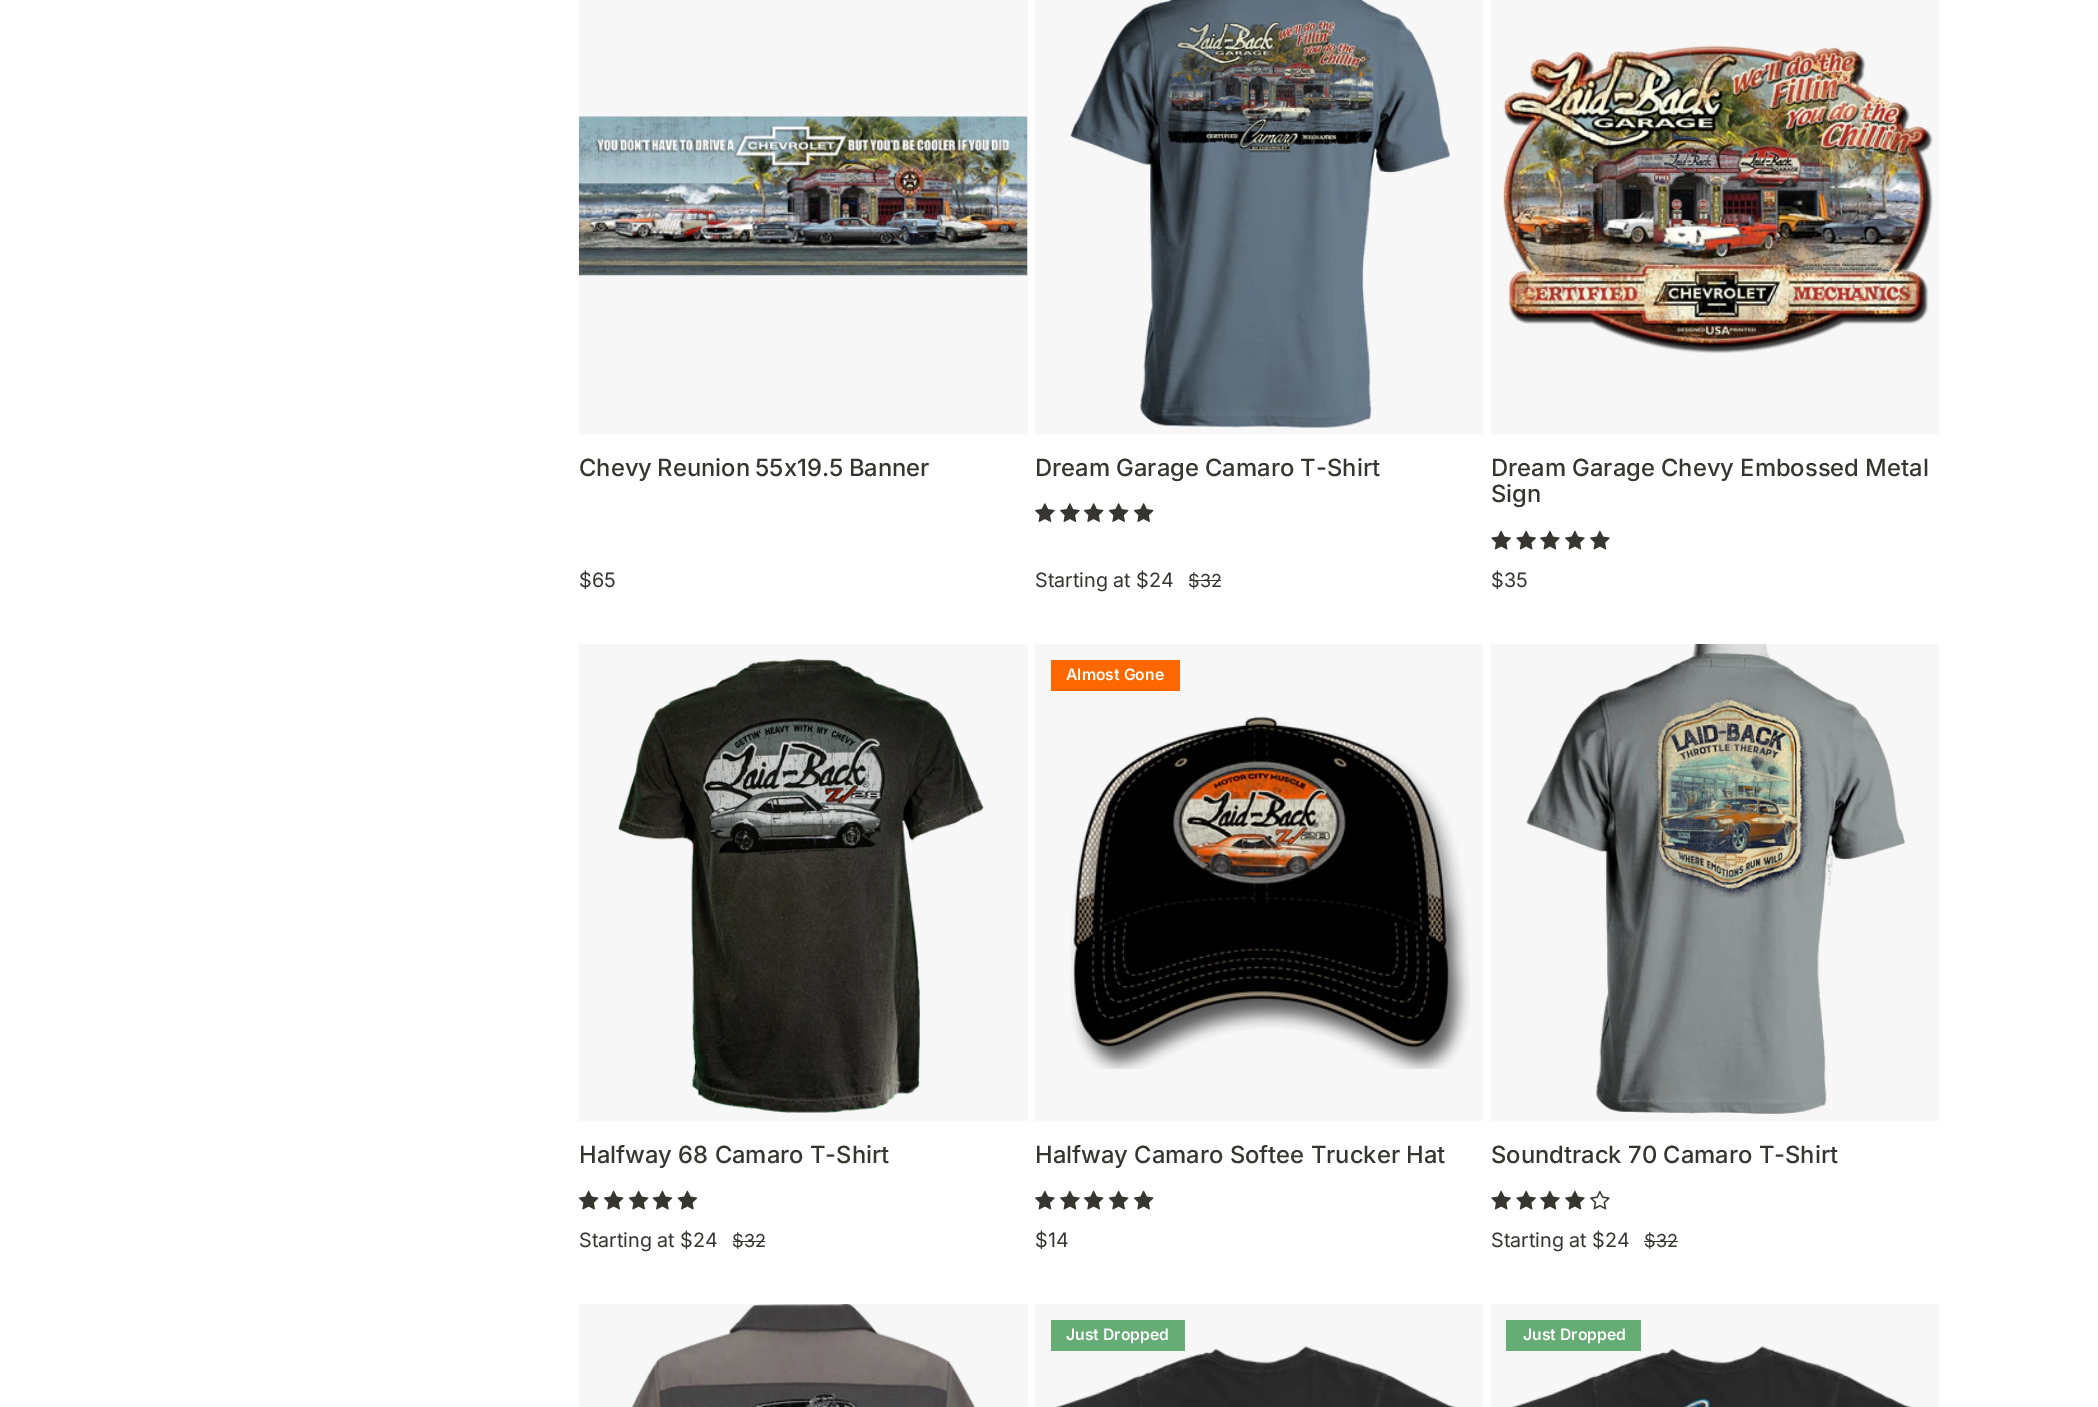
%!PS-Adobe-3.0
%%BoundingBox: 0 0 2098 1407
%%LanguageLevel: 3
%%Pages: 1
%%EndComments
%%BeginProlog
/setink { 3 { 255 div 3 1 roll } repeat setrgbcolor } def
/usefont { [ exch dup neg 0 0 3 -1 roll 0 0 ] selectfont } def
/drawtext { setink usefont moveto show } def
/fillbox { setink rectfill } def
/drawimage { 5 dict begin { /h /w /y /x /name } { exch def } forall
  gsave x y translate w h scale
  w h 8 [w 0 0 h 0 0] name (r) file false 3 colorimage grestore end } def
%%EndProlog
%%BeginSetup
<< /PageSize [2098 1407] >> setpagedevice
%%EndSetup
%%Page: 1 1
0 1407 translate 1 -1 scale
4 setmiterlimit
0 0 2098 1407 255 255 255 fillbox
579 0 449 435 247 247 247 fillbox
(assets/img1.rgb) 578 116 450 160 drawimage
/Inter-Medium 23.75 usefont
54 53 47 setink
579 476 moveto -1 0 32 (Chevy Reunion 55x19.5 Banner) widthshow
($65) 579 587 /Inter-Regular 19.75 54 53 47 drawtext
1035 0 448 435 247 247 247 fillbox
(assets/img2.rgb) 1070 0 380 428 drawimage
(Dream Garage Camaro T-Shirt) 1035 476 /Inter-Medium 23.75 54 53 47 drawtext
(assets/img3.rgb) 1035 503 20 19 drawimage
(assets/img3.rgb) 1060 503 20 19 drawimage
(assets/img4.rgb) 1083 503 21 19 drawimage
(assets/img4.rgb) 1108 503 21 19 drawimage
(assets/img4.rgb) 1133 503 21 19 drawimage
(Starting at $24) 1035 587 /Inter-Regular 19.75 54 53 47 drawtext
($32) 1188 587 /Inter-Regular 18 54 53 47 drawtext
1189 580 32 1 54 53 47 fillbox
1491 0 448 435 247 247 247 fillbox
(assets/img5.rgb) 1503 45 430 309 drawimage
(Dream Garage Chevy Embossed Metal) 1491 476 /Inter-Medium 23.75 54 53 47 drawtext
(Sign) 1491 502 /Inter-Medium 23.75 54 53 47 drawtext
(assets/img6.rgb) 1491 530 20 20 drawimage
(assets/img6.rgb) 1516 530 20 20 drawimage
(assets/img7.rgb) 1540 530 20 20 drawimage
(assets/img7.rgb) 1565 530 20 20 drawimage
(assets/img7.rgb) 1590 530 20 20 drawimage
($35) 1491 587 /Inter-Regular 19.75 54 53 47 drawtext
579 644 449 477 247 247 247 fillbox
(assets/img8.rgb) 618 659 366 454 drawimage
(Halfway 68 Camaro T-Shirt) 579 1163 /Inter-Medium 23.75 54 53 47 drawtext
(assets/img9.rgb) 578 1190 21 20 drawimage
(assets/img9.rgb) 603 1190 21 20 drawimage
(assets/img9.rgb) 628 1190 21 20 drawimage
(assets/img10.rgb) 652 1190 21 20 drawimage
(assets/img10.rgb) 677 1190 21 20 drawimage
(Starting at $24) 579 1247 /Inter-Regular 19.75 54 53 47 drawtext
($32) 732 1247 /Inter-Regular 18 54 53 47 drawtext
733 1241 32 1 54 53 47 fillbox
1035 644 448 477 247 247 247 fillbox
1051 660 129 31 255 103 0 fillbox
(Almost Gone) 1066 680 /Inter-SemiBold 15.75 255 255 255 drawtext
(assets/img11.rgb) 1070 716 400 353 drawimage
(Halfway Camaro Softee Trucker Hat) 1035 1163 /Inter-Medium 23.75 54 53 47 drawtext
(assets/img7.rgb) 1035 1190 20 20 drawimage
(assets/img7.rgb) 1060 1190 20 20 drawimage
(assets/img9.rgb) 1083 1190 21 20 drawimage
(assets/img9.rgb) 1108 1190 21 20 drawimage
(assets/img9.rgb) 1133 1190 21 20 drawimage
($14) 1035 1247 /Inter-Regular 19.75 54 53 47 drawtext
1491 644 448 477 247 247 247 fillbox
(assets/img12.rgb) 1526 644 379 470 drawimage
(Soundtrack 70 Camaro T-Shirt) 1491 1163 /Inter-Medium 23.75 54 53 47 drawtext
(assets/img6.rgb) 1491 1190 20 20 drawimage
(assets/img6.rgb) 1516 1190 20 20 drawimage
(assets/img7.rgb) 1540 1190 20 20 drawimage
(assets/img7.rgb) 1565 1190 20 20 drawimage
(assets/img13.rgb) 1590 1190 20 20 drawimage
(Starting at $24) 1491 1247 /Inter-Regular 19.75 54 53 47 drawtext
($32) 1644 1247 /Inter-Regular 18 54 53 47 drawtext
1644 1241 34 1 54 53 47 fillbox
579 1304 449 103 247 247 247 fillbox
(assets/img14.rgb) 631 1304 344 103 drawimage
1035 1304 448 103 247 247 247 fillbox
(assets/img15.rgb) 1055 1346 401 61 drawimage
1051 1320 134 31 101 172 117 fillbox
(Just Dropped) 1066 1340 /Inter-SemiBold 15.75 255 255 255 drawtext
1491 1304 448 103 247 247 247 fillbox
(assets/img16.rgb) 1511 1346 401 61 drawimage
1506 1320 135 31 101 172 117 fillbox
(Just Dropped) 1523 1340 /Inter-SemiBold 15.75 255 255 255 drawtext
showpage
%%EOF
